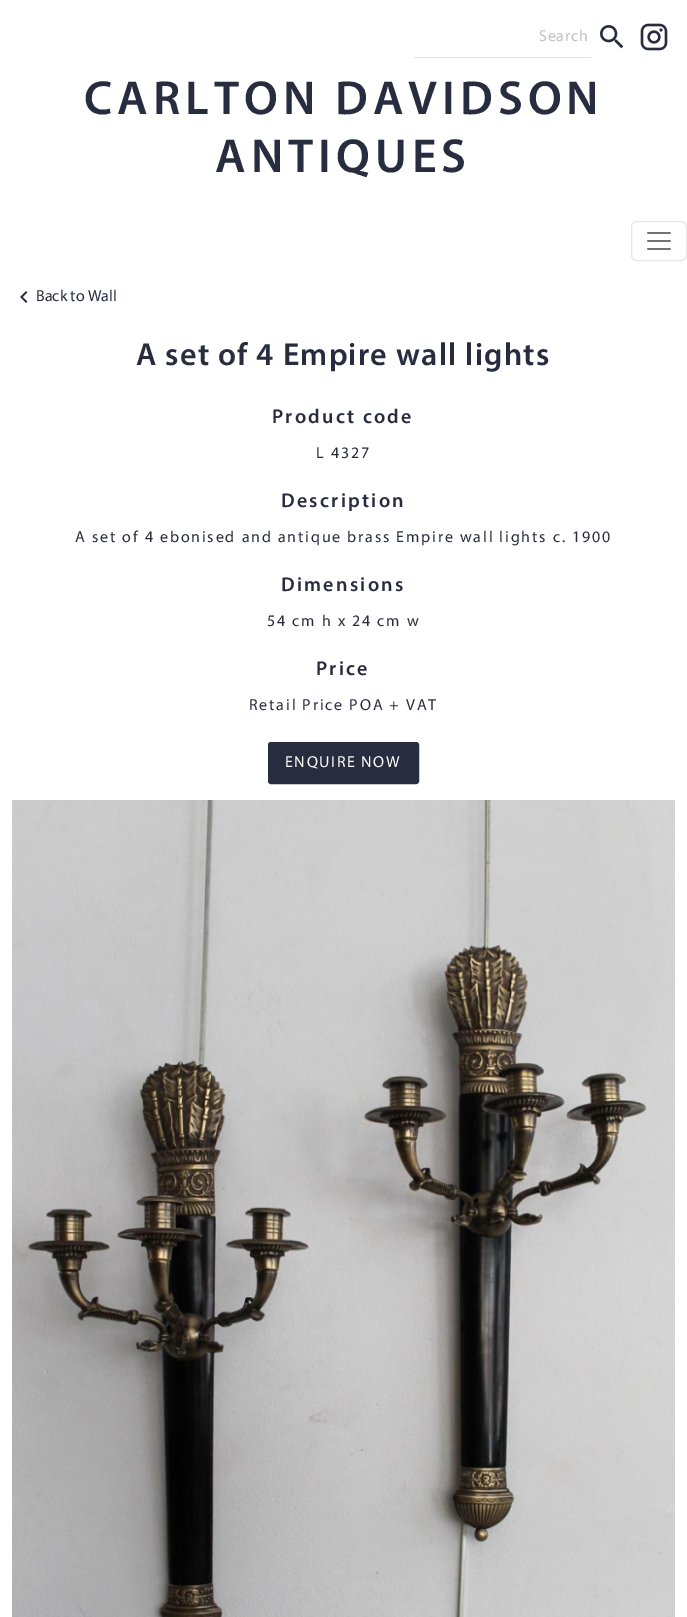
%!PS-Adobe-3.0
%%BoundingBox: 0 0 687 1617
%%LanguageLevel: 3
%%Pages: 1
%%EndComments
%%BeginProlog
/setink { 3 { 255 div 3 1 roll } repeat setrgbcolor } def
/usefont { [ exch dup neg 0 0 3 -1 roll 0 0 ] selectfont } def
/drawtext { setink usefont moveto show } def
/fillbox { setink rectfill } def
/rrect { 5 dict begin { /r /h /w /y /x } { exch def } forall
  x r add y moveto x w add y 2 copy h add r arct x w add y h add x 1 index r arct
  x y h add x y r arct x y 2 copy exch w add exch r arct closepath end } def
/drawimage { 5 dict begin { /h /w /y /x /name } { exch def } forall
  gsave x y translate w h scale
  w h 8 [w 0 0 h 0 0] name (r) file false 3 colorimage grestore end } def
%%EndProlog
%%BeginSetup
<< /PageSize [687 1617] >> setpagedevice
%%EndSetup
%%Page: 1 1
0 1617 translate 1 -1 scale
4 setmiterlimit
0 0 687 1617 255 255 255 fillbox
414 57 177 1 222 226 230 fillbox
/Myriad-Regular 16 usefont
191 192 197 setink
539 41 moveto 0.75 0 (Search) ashow
(assets/img1.rgb) 600 25 24 24 drawimage
(assets/img2.rgb) 640 23 28 28 drawimage
/Myriad-SemiBold 48 usefont
40 44 63 setink
84 114 moveto 5 0 (CARLTON DAVIDSON) ashow
215 172 moveto 5 0 (ANTIQUES) ashow
230 230 230 setink
631.5 221.5 55 39 5.5 rrect stroke
(assets/img3.rgb) 647 232 24 18 drawimage
(assets/img4.rgb) 20 291 8 12 drawimage
(Back to Wall) 36 301 /Myriad-Regular 16 40 44 63 drawtext
/Myriad-SemiBold 32 usefont
136 365 moveto 1.2 0 (A set of 4 Empire wall lights) ashow
/Myriad-SemiBold 20 usefont
272 423 moveto 2.25 0 (Product code) ashow
/Myriad-Regular 16 usefont
316 458 moveto 1.83 0 (L 4327) ashow
/Myriad-SemiBold 20 usefont
281 507 moveto 2.25 0 (Description) ashow
/Myriad-Regular 16 usefont
75 542 moveto 1.83 0 (A set of 4 ebonised and antique brass Empire wall lights c. 1900) ashow
/Myriad-SemiBold 20 usefont
281 591 moveto 2.25 0 (Dimensions) ashow
/Myriad-Regular 16 usefont
267 626 moveto 1.83 0 (54 cm h x 24 cm w) ashow
/Myriad-SemiBold 20 usefont
316 675 moveto 2.25 0 (Price) ashow
/Myriad-Regular 16 usefont
249 710 moveto 1.83 0 (Retail Price POA + VAT) ashow
268.5 742.5 150 41 2.5 rrect gsave fill grestore
stroke
255 255 255 setink
285 767 moveto 1.6 0 (ENQUIRE NOW) ashow
(assets/img5.rgb) 12 800 663 817 drawimage
showpage
%%EOF
